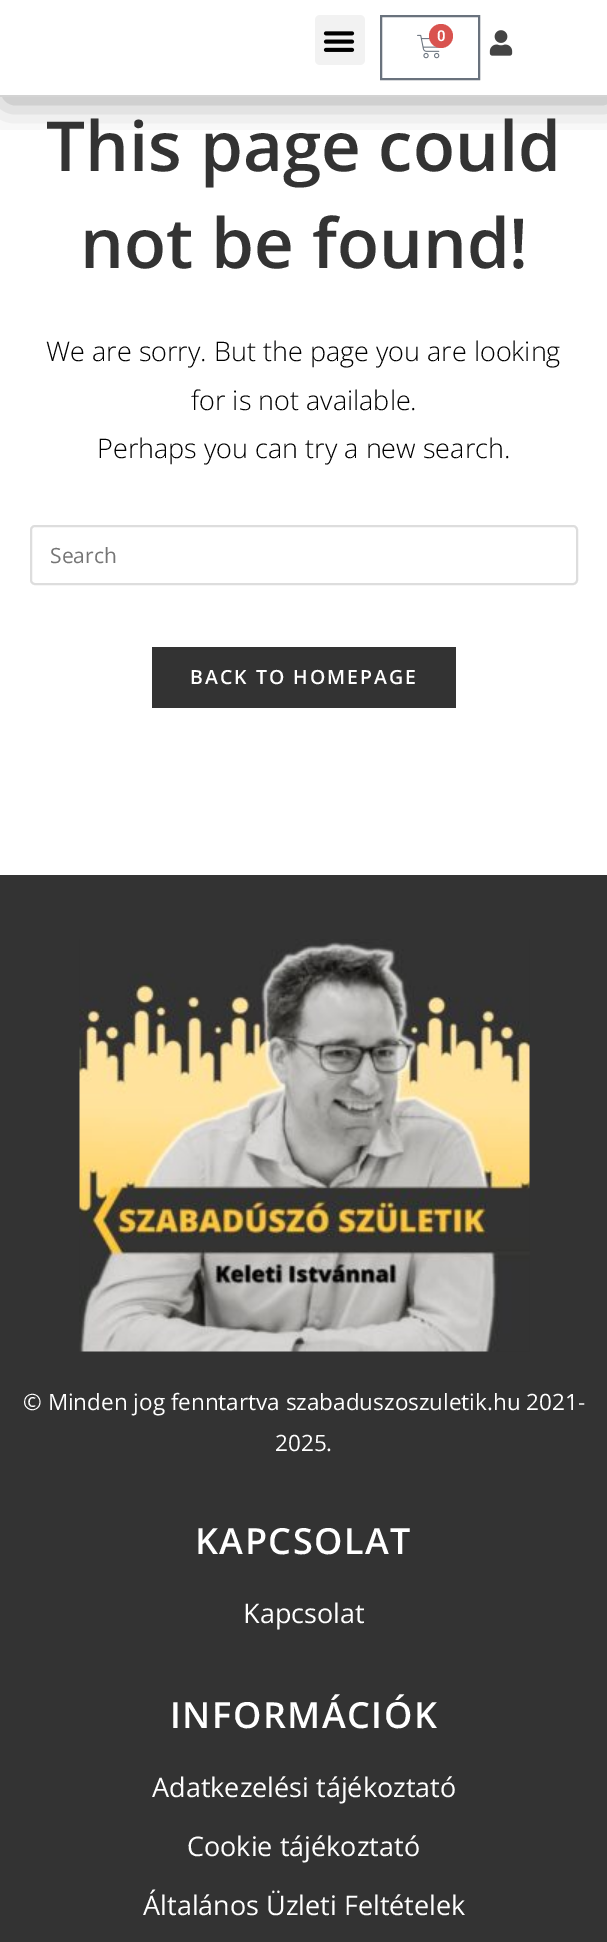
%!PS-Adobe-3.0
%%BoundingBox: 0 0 607 1942
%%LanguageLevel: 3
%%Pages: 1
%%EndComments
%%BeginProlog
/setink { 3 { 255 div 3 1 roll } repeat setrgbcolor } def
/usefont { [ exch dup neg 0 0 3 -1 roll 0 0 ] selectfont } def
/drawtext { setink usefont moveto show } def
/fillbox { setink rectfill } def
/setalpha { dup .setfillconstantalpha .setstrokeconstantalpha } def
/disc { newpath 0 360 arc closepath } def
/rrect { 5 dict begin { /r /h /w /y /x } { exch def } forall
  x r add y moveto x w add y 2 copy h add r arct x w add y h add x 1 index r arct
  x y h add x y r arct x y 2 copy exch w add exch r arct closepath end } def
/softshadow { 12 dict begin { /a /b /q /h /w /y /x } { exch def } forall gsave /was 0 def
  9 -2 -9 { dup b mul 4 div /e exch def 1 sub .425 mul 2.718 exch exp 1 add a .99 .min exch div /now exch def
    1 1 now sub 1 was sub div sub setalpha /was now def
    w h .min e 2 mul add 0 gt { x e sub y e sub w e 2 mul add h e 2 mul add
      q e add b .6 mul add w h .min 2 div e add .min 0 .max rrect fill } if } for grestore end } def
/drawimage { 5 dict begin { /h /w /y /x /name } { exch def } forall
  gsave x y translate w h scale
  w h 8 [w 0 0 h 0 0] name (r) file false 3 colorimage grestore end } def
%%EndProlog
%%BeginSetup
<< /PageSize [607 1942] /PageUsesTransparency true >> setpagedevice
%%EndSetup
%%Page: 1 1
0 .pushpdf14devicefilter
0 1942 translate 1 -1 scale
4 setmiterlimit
0 0 607 1942 255 255 255 fillbox
gsave
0 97 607 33 rectclip
0 0 0 setink
5 5 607 96 0 18 0.36 softshadow
grestore
0 95 607 2 211 211 211 fillbox
242 242 242 setink
315 15 50 50 5 rrect fill
(assets/img1.rgb) 323 31 32 21 drawimage
105 114 125 setink
2 setlinewidth
381 16 98 63 rectstroke
(assets/img2.rgb) 417 34 23 25 drawimage
217 83 79 setink
441 36 12 disc fill
(0) 437 41 /Roboto-SemiBold 15 255 255 255 drawtext
(assets/img3.rgb) 489 30 24 26 drawimage
(This page could) 46 171 /OpenSans-SemiBold 69 51 51 51 drawtext
(not be found!) 80 268 /OpenSans-SemiBold 69 51 51 51 drawtext
(We are sorry. But the page you are looking) 46 361 /OpenSans-Light 27 0 0 0 drawtext
(for is not available.) 191 410 /OpenSans-Light 27 0 0 0 drawtext
(Perhaps you can try a new search.) 97 458 /OpenSans-Light 27 0 0 0 drawtext
221 221 221 setink
31 526 546 58 4 rrect stroke
(Search) 50 563 /OpenSans-Regular 21 117 117 117 drawtext
152 647 304 61 51 51 51 fillbox
/OpenSans-SemiBold 19.5 usefont
255 255 255 setink
190 684 moveto 2 0 (BACK TO HOMEPAGE) ashow
0 875 607 1067 51 51 51 fillbox
(assets/img4.rgb) 79 939 451 413 drawimage
(© Minden jog fenntartva szabaduszoszuletik.hu 2021-) 23 1410 /OpenSans-Regular 22.5 255 255 255 drawtext
(2025.) 275 1451 /OpenSans-Regular 22.5 255 255 255 drawtext
/OpenSans-SemiBold 36 usefont
195 1554 moveto 1.5 0 (KAPCSOLAT) ashow
(Kapcsolat) 243 1623 /OpenSans-Regular 27 255 255 255 drawtext
/OpenSans-SemiBold 36 usefont
170 1728 moveto 1.5 0 (INFORMÁCIÓK) ashow
(Adatkezelési tájékoztató) 152 1797 /OpenSans-Regular 27 255 255 255 drawtext
(Cookie tájékoztató) 187 1856 /OpenSans-Regular 27 255 255 255 drawtext
(Általános Üzleti Feltételek) 143 1915 /OpenSans-Regular 27 255 255 255 drawtext
.poppdf14devicefilter showpage
%%EOF
